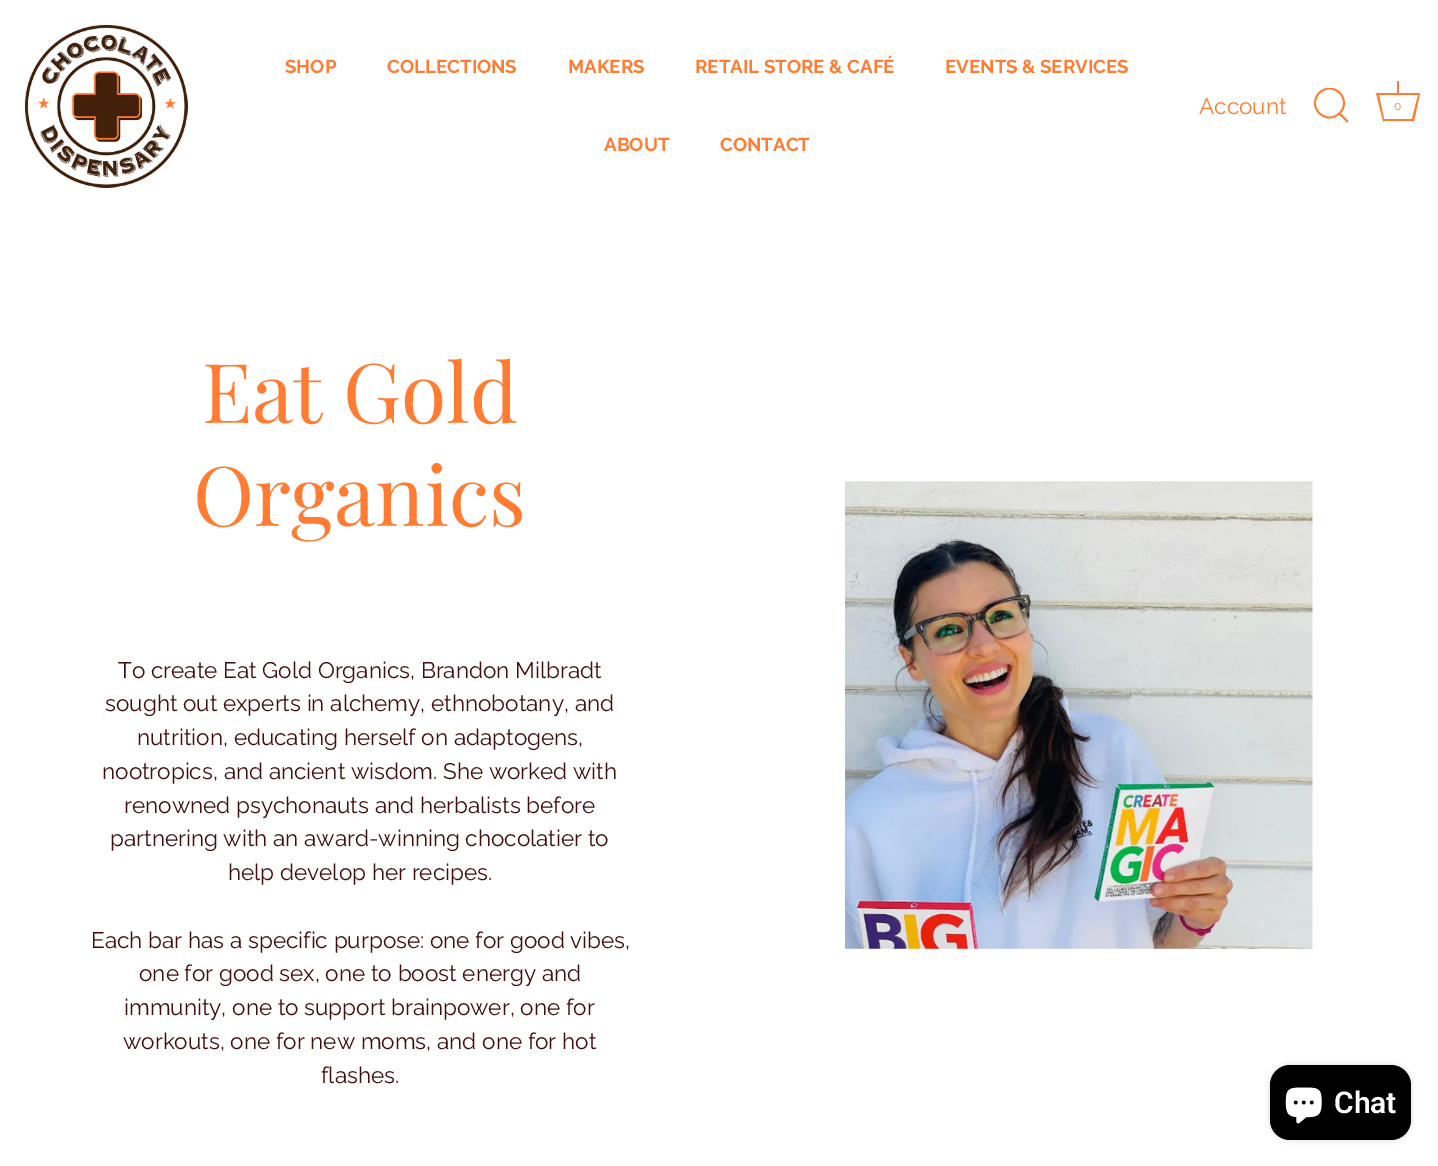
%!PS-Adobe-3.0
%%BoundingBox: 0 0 1438 1166
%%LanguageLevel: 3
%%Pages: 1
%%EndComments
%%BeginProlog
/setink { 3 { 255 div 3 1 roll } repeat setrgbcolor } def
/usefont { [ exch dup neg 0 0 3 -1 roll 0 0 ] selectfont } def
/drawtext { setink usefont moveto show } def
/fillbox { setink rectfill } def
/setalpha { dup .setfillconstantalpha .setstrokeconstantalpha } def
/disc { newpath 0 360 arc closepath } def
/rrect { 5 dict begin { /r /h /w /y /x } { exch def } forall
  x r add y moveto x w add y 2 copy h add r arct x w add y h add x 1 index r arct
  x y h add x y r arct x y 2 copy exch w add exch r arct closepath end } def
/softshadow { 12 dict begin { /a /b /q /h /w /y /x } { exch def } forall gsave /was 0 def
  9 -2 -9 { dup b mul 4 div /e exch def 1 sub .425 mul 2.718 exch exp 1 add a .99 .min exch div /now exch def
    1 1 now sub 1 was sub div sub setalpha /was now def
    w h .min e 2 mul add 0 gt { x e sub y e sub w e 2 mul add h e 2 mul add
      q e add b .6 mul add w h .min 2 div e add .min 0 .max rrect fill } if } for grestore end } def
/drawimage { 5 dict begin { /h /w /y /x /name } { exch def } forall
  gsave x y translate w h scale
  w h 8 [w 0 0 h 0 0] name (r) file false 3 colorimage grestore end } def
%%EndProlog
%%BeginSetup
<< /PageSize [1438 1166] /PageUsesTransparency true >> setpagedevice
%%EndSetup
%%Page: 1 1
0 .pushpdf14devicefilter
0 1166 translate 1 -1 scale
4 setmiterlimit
0 0 1438 1166 255 255 255 fillbox
(assets/img1.rgb) 25 25 163 163 drawimage
(SHOP) 285 73 /Raleway-Bold 18.75 255 124 50 drawtext
(COLLECTIONS) 387 73 /Raleway-Bold 18.75 255 124 50 drawtext
(MAKERS) 568 73 /Raleway-Bold 18.75 255 124 50 drawtext
(RETAIL STORE & CAFÉ) 695 73 /Raleway-Bold 18.75 255 124 50 drawtext
(EVENTS & SERVICES) 945 73 /Raleway-Bold 18.75 255 124 50 drawtext
(ABOUT) 604 151 /Raleway-Bold 18.75 255 124 50 drawtext
(CONTACT) 720 151 /Raleway-Bold 18.75 255 124 50 drawtext
(Account) 1199 114 /Raleway-Thin 22.5 255 124 50 drawtext
gsave
1314 88 36 36 rectclip
1.8 setlinewidth
1329.5 103 14.5 disc stroke
grestore
1.8 setlinewidth
1 setlinecap
1 setlinejoin
1347.5 121.5 moveto 1339.5 113.5 lineto stroke
1397 81 2 12 255 124 50 fillbox
1418 95 moveto 1412 119 lineto 1384 119 lineto 1379 95 lineto 1418 95 lineto 1420 93 moveto 1376 93 lineto 1383 121 lineto 1414 121 lineto closepath fill
(0) 1394 110 /Raleway-Thin 12 255 124 50 drawtext
(Eat Gold) 202 423 /PlayfairDisplay-Regular 82.5 255 124 50 drawtext
(Organics) 193 526 /PlayfairDisplay-Regular 82.5 255 124 50 drawtext
(To create Eat Gold Organics, Brandon Milbradt) 118 678 /Raleway-Thin 22.5 63 15 13 drawtext
(sought out experts in alchemy, ethnobotany, and) 105 711 /Raleway-Thin 22.5 63 15 13 drawtext
(nutrition, educating herself on adaptogens,) 137 745 /Raleway-Thin 22.5 63 15 13 drawtext
(nootropics, and ancient wisdom. She worked with) 102 779 /Raleway-Thin 22.5 63 15 13 drawtext
(renowned psychonauts and herbalists before) 124 813 /Raleway-Thin 22.5 63 15 13 drawtext
(partnering with an award-winning chocolatier to) 110 846 /Raleway-Thin 22.5 63 15 13 drawtext
(help develop her recipes.) 228 880 /Raleway-Thin 22.5 63 15 13 drawtext
(Each bar has a specific purpose: one for good vibes,) 91 948 /Raleway-Thin 22.5 63 15 13 drawtext
(one for good sex, one to boost energy and) 139 981 /Raleway-Thin 22.5 63 15 13 drawtext
(immunity, one to support brainpower, one for) 124 1015 /Raleway-Thin 22.5 63 15 13 drawtext
(workouts, one for new moms, and one for hot) 123 1049 /Raleway-Thin 22.5 63 15 13 drawtext
(flashes.) 321 1083 /Raleway-Thin 22.5 63 15 13 drawtext
(assets/img2.rgb) 845 481 468 468 drawimage
0 0 0 setink
1270 1065 141 75 20 3 0.15 softshadow
1270 1065 141 75 20 rrect fill
(assets/img3.rgb) 1285 1087 37 37 drawimage
(Chat) 1334 1113 /Roboto-SemiBold 30 255 255 255 drawtext
.poppdf14devicefilter showpage
%%EOF
